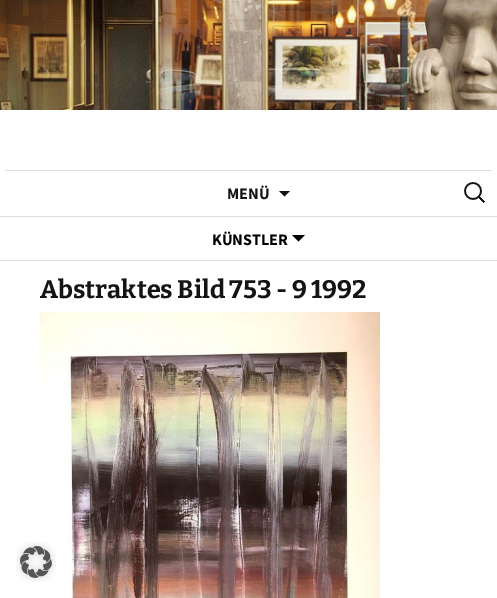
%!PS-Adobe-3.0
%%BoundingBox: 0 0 497 598
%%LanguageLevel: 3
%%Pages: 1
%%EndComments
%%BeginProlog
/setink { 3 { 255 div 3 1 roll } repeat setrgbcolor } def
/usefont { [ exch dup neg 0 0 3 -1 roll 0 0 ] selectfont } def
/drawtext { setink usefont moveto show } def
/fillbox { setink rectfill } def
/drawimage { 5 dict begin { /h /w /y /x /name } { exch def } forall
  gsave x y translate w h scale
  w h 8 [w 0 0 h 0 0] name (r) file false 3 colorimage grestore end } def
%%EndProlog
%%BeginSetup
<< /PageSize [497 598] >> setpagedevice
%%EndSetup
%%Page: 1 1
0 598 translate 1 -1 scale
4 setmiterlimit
0 0 497 598 255 255 255 fillbox
(assets/img1.rgb) 0 0 497 110 drawimage
5 170 487 1 221 221 221 fillbox
(MENÜ) 227 199 /SourceSansPro-Bold 16 20 20 18 drawtext
279 191 moveto 284.5 196.5 lineto 290 191 lineto closepath fill
(assets/img2.rgb) 464 182 21 21 drawimage
0 216 497 1 221 221 221 fillbox
0 260 497 1 221 221 221 fillbox
(KÜNSTLER) 212 245 /SourceSansPro-Bold 16 0 0 0 drawtext
292 235 moveto 298.5 241.5 lineto 305 235 lineto closepath fill
(Abstraktes Bild 753 - 9 1992) 40 298 /Bitter-Thin 25.3 20 20 18 drawtext
(assets/img3.rgb) 40 312 340 286 drawimage
(assets/img4.rgb) 16 542 40 40 drawimage
showpage
%%EOF
